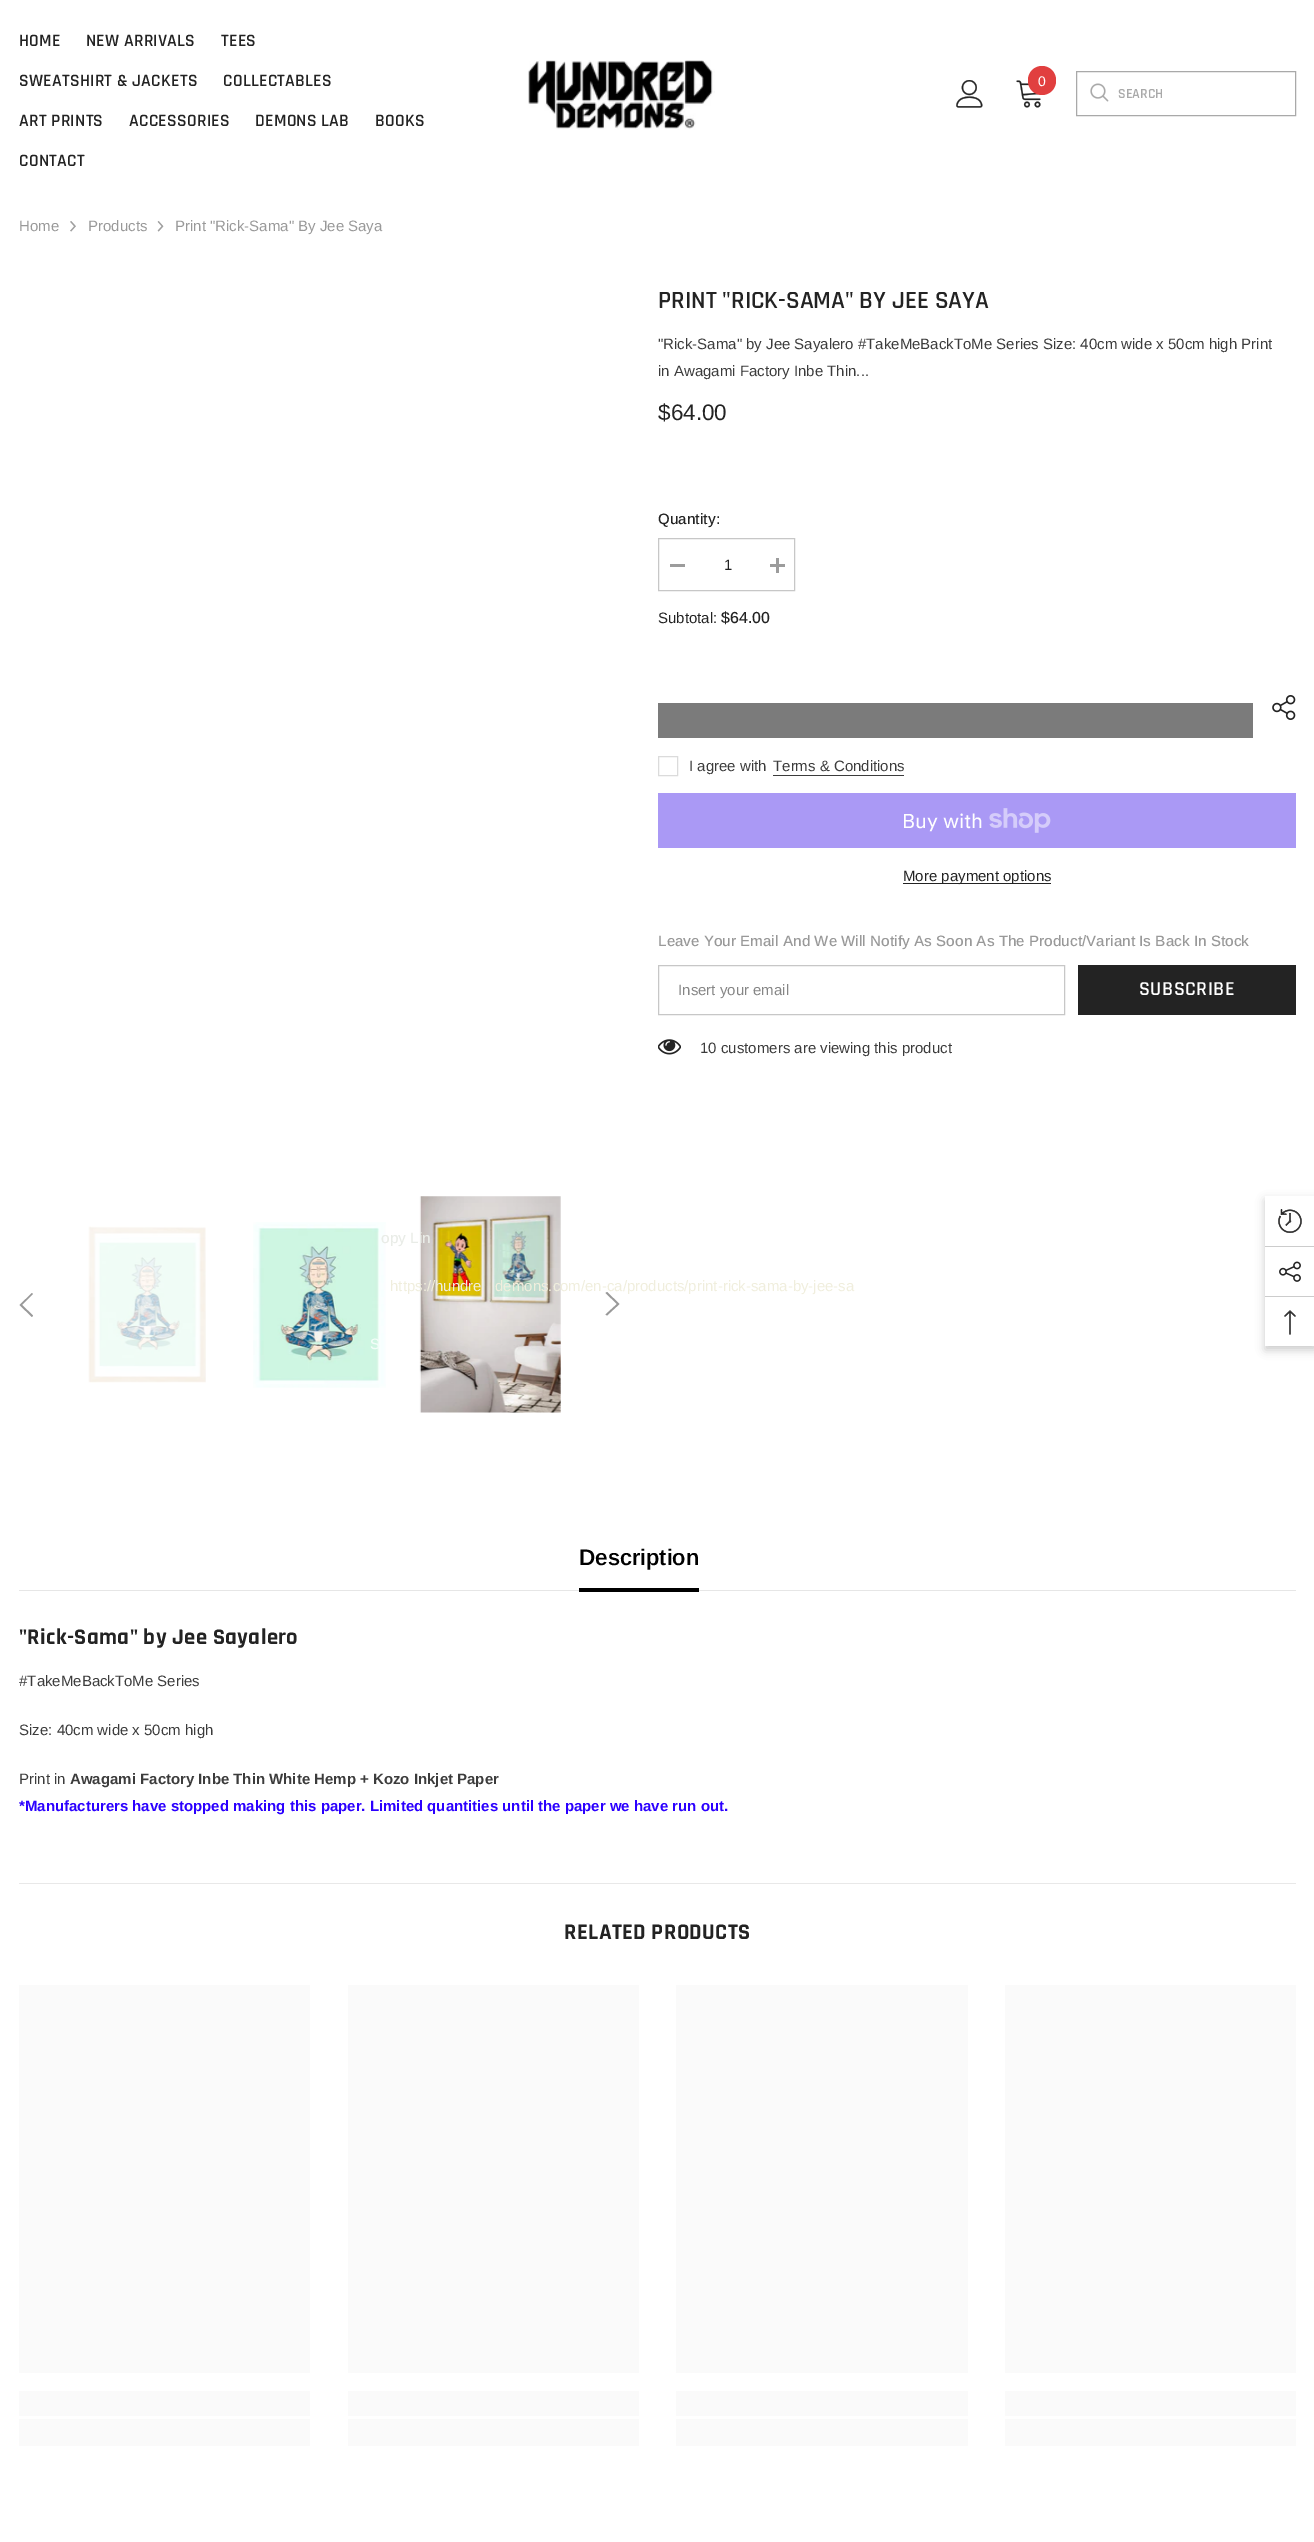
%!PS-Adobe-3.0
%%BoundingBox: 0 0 1314 2542
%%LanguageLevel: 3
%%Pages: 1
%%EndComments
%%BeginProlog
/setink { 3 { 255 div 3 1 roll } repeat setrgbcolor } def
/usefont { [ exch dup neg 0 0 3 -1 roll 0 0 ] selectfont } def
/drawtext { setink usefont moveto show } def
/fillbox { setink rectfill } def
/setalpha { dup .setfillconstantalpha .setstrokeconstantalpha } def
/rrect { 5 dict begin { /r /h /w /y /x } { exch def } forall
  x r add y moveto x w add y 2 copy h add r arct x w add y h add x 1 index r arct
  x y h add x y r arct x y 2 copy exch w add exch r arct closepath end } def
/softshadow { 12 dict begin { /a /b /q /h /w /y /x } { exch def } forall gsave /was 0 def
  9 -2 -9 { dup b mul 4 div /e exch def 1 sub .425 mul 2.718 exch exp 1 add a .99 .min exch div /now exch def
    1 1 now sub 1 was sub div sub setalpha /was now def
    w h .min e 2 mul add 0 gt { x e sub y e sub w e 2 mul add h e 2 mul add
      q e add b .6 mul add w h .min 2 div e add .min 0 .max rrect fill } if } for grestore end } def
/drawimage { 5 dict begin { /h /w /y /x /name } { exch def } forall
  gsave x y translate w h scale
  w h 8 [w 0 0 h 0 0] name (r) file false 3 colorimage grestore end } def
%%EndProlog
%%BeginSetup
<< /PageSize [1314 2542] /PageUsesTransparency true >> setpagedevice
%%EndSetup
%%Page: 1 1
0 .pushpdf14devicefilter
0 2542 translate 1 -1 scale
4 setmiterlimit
0 0 1314 2542 255 255 255 fillbox
/Rajdhani-SemiBold 17.5 usefont
35 35 35 setink
19 46 moveto 0.3 0 (HOME) ashow
86 46 moveto 0.3 0 (NEW ARRIVALS) ashow
221 46 moveto 0.3 0 (TEES) ashow
19 86 moveto 0.3 0 (SWEATSHIRT & JACKETS) ashow
223 86 moveto 0.3 0 (COLLECTABLES) ashow
19 126 moveto 0.3 0 (ART PRINTS) ashow
129 126 moveto 0.3 0 (ACCESSORIES) ashow
255 126 moveto 0.3 0 (DEMONS LAB) ashow
375 126 moveto 0.3 0 (BOOKS) ashow
19 166 moveto 0.3 0 (CONTACT) ashow
(assets/img1.rgb) 528 60 187 70 drawimage
(assets/img2.rgb) 956 80 27 28 drawimage
(assets/img3.rgb) 1016 80 25 28 drawimage
225 63 63 setink
1028 66 28 29 14 rrect fill
(0) 1038 86 /Arimo-Regular 14 255 255 255 drawtext
169 169 169 setink
1076.5 71.5 219 44 rectstroke
(assets/img4.rgb) 1090 83 19 19 drawimage
(SEARCH) 1118 98 /Rajdhani-SemiBold 14 169 169 169 drawtext
(Home) 19 231 /Arimo-Regular 15 153 153 153 drawtext
(assets/img5.rgb) 70 221 6 11 drawimage
(Products) 88 231 /Arimo-Regular 15 153 153 153 drawtext
(assets/img6.rgb) 157 221 7 11 drawimage
(Print "Rick-Sama" By Jee Saya) 175 231 /Arimo-Regular 15 153 153 153 drawtext
32 1293 moveto 33 1294 lineto 22 1305 lineto 33 1315.5 lineto 32 1317 lineto 19.5 1305 lineto closepath fill
(assets/img7.rgb) 88 1226 118 157 drawimage
(assets/img8.rgb) 253 1222 133 166 drawimage
(assets/img9.rgb) 419 1196 142 217 drawimage
607 1315.5 moveto 605.5 1314.5 lineto 617 1304 lineto 605.5 1293 lineto 607 1292 lineto 619.5 1304 lineto closepath fill
(PRINT "RICK-SAMA" BY JEE SAYA) 658 308 /Rajdhani-SemiBold 25 35 35 35 drawtext
("Rick-Sama" by Jee Sayalero #TakeMeBackToMe Series Size: 40cm wide x 50cm high Print) 658 349 /Arimo-Regular 15 60 60 60 drawtext
(in Awagami Factory Inbe Thin...) 658 376 /Arimo-Regular 15 60 60 60 drawtext
($64.00) 658 420 /Arimo-Regular 22.5 35 35 35 drawtext
(Quantity:) 658 524 /Arimo-Medium 15 35 35 35 drawtext
199 199 199 setink
658.5 538.5 136 52 rectstroke
670 564 15 3 156 156 156 fillbox
(1) 724 570 /Arimo-Regular 15 35 35 35 drawtext
770 564 15 3 156 156 156 fillbox
776 558 3 15 156 156 156 fillbox
(Subtotal:) 658 623 /Arimo-Regular 15 35 35 35 drawtext
($64.00) 721 623 /Arimo-Medium 16 35 35 35 drawtext
219 219 219 setink
658.5 756.5 19 19 rectstroke
(I agree with) 689 771 /Arimo-Regular 15 60 60 60 drawtext
(Terms & Conditions) 773 771 /LiberationSans-Regular 15 60 60 60 drawtext
773 775 131 1 60 60 60 fillbox
658 793 638 55 170 153 245 fillbox
(Buy with) 902 828 /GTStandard-Regular 20 255 255 255 drawtext
(assets/img10.rgb) 989 808 62 25 drawimage
903 883 148 1 35 35 35 fillbox
(More payment options) 903 881 /Arimo-Regular 15 35 35 35 drawtext
658 703 595 35 123 123 123 fillbox
(assets/img11.rgb) 1272 695 24 25 drawimage
(opy Lin) 381 1243 /Arimo-Medium 15 233 236 231 drawtext
(https://hundre) 390 1291 /Arimo-Regular 15 240 238 221 drawtext
(demons.com/en-ca/products/print-rick-sama-by-jee-sa) 495 1291 /Arimo-Regular 15 240 238 221 drawtext
(S) 370 1349 /Arimo-Medium 15 242 253 248 drawtext
(Leave Your Email And We Will Notify As Soon As The Product/Variant Is Back In Stock) 658 946 /Arimo-Medium 15 153 153 153 drawtext
199 199 199 setink
658.5 965.5 406 49 rectstroke
(Insert your email) 678 995 /Arimo-Regular 15 134 134 134 drawtext
1078 965 218 50 35 35 35 fillbox
/Rajdhani-SemiBold 20 usefont
255 255 255 setink
1139 995 moveto 0.5 0 (SUBSCRIBE) ashow
(assets/img12.rgb) 658 1039 23 16 drawimage
(10 customers are viewing this product) 700 1053 /Arimo-Regular 15 60 60 60 drawtext
19 1590 1277 1 230 230 230 fillbox
(Description) 579 1565 /Arimo-SemiBold 22.5 0 0 0 drawtext
579 1588 120 4 0 0 0 fillbox
/Rajdhani-Bold 22.5 usefont
35 35 35 setink
19 1644 moveto 0.45 0 ("Rick-Sama" by Jee Sayalero) ashow
(#TakeMeBackToMe Series) 19 1686 /Arimo-Regular 15 60 60 60 drawtext
(Size: 40cm wide x 50cm high) 19 1735 /Arimo-Regular 15 60 60 60 drawtext
(Print in) 19 1784 /Arimo-Regular 15 60 60 60 drawtext
(Awagami Factory Inbe Thin White Hemp + Kozo Inkjet Paper) 70 1784 /Arimo-Bold 15 60 60 60 drawtext
(*Manufacturers have stopped making this paper. Limited quantities until the paper we have run out.) 19 1811 /Arimo-Bold 15 43 0 255 drawtext
19 1883 1277 1 232 232 232 fillbox
/Rajdhani-Bold 22.5 usefont
35 35 35 setink
564 1939 moveto 0.45 0 (RELATED PRODUCTS) ashow
19 1985 291 388 250 250 250 fillbox
gsave 19 2391 moveto 310 2391 lineto 310 2416 lineto 19 2416 lineto closepath clip newpath
<< /ShadingType 2 /ColorSpace /DeviceRGB /Coords [-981 2404 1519 2404] /Extend [true true] /Function << /FunctionType 3 /Domain [0 1] /Functions [<< /FunctionType 2 /Domain [0 1] /C0 [0.98 0.98 0.98] /C1 [0.98 0.98 0.98] /N 1 >> << /FunctionType 2 /Domain [0 1] /C0 [0.98 0.98 0.98] /C1 [0.945 0.949 0.953] /N 1 >> << /FunctionType 2 /Domain [0 1] /C0 [0.945 0.949 0.953] /C1 [0.98 0.98 0.98] /N 1 >> << /FunctionType 2 /Domain [0 1] /C0 [0.98 0.98 0.98] /C1 [0.98 0.98 0.98] /N 1 >>] /Bounds [0.04 0.25 0.36] /Encode [0 1 0 1 0 1 0 1] >> >> shfill grestore
gsave 19 2419 moveto 310 2419 lineto 310 2446 lineto 19 2446 lineto closepath clip newpath
<< /ShadingType 2 /ColorSpace /DeviceRGB /Coords [-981 2433 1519 2433] /Extend [true true] /Function << /FunctionType 3 /Domain [0 1] /Functions [<< /FunctionType 2 /Domain [0 1] /C0 [0.98 0.98 0.98] /C1 [0.98 0.98 0.98] /N 1 >> << /FunctionType 2 /Domain [0 1] /C0 [0.98 0.98 0.98] /C1 [0.945 0.949 0.953] /N 1 >> << /FunctionType 2 /Domain [0 1] /C0 [0.945 0.949 0.953] /C1 [0.98 0.98 0.98] /N 1 >> << /FunctionType 2 /Domain [0 1] /C0 [0.98 0.98 0.98] /C1 [0.98 0.98 0.98] /N 1 >>] /Bounds [0.04 0.25 0.36] /Encode [0 1 0 1 0 1 0 1] >> >> shfill grestore
348 1985 291 388 250 250 250 fillbox
gsave 348 2391 moveto 639 2391 lineto 639 2416 lineto 348 2416 lineto closepath clip newpath
<< /ShadingType 2 /ColorSpace /DeviceRGB /Coords [-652 2404 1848 2404] /Extend [true true] /Function << /FunctionType 3 /Domain [0 1] /Functions [<< /FunctionType 2 /Domain [0 1] /C0 [0.98 0.98 0.98] /C1 [0.98 0.98 0.98] /N 1 >> << /FunctionType 2 /Domain [0 1] /C0 [0.98 0.98 0.98] /C1 [0.945 0.949 0.953] /N 1 >> << /FunctionType 2 /Domain [0 1] /C0 [0.945 0.949 0.953] /C1 [0.98 0.98 0.98] /N 1 >> << /FunctionType 2 /Domain [0 1] /C0 [0.98 0.98 0.98] /C1 [0.98 0.98 0.98] /N 1 >>] /Bounds [0.04 0.25 0.36] /Encode [0 1 0 1 0 1 0 1] >> >> shfill grestore
gsave 348 2419 moveto 639 2419 lineto 639 2446 lineto 348 2446 lineto closepath clip newpath
<< /ShadingType 2 /ColorSpace /DeviceRGB /Coords [-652 2433 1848 2433] /Extend [true true] /Function << /FunctionType 3 /Domain [0 1] /Functions [<< /FunctionType 2 /Domain [0 1] /C0 [0.98 0.98 0.98] /C1 [0.98 0.98 0.98] /N 1 >> << /FunctionType 2 /Domain [0 1] /C0 [0.98 0.98 0.98] /C1 [0.945 0.949 0.953] /N 1 >> << /FunctionType 2 /Domain [0 1] /C0 [0.945 0.949 0.953] /C1 [0.98 0.98 0.98] /N 1 >> << /FunctionType 2 /Domain [0 1] /C0 [0.98 0.98 0.98] /C1 [0.98 0.98 0.98] /N 1 >>] /Bounds [0.04 0.25 0.36] /Encode [0 1 0 1 0 1 0 1] >> >> shfill grestore
676 1985 292 388 250 250 250 fillbox
gsave 676 2391 moveto 968 2391 lineto 968 2416 lineto 676 2416 lineto closepath clip newpath
<< /ShadingType 2 /ColorSpace /DeviceRGB /Coords [-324 2404 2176 2404] /Extend [true true] /Function << /FunctionType 3 /Domain [0 1] /Functions [<< /FunctionType 2 /Domain [0 1] /C0 [0.98 0.98 0.98] /C1 [0.98 0.98 0.98] /N 1 >> << /FunctionType 2 /Domain [0 1] /C0 [0.98 0.98 0.98] /C1 [0.945 0.949 0.953] /N 1 >> << /FunctionType 2 /Domain [0 1] /C0 [0.945 0.949 0.953] /C1 [0.98 0.98 0.98] /N 1 >> << /FunctionType 2 /Domain [0 1] /C0 [0.98 0.98 0.98] /C1 [0.98 0.98 0.98] /N 1 >>] /Bounds [0.04 0.25 0.36] /Encode [0 1 0 1 0 1 0 1] >> >> shfill grestore
gsave 676 2419 moveto 968 2419 lineto 968 2446 lineto 676 2446 lineto closepath clip newpath
<< /ShadingType 2 /ColorSpace /DeviceRGB /Coords [-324 2433 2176 2433] /Extend [true true] /Function << /FunctionType 3 /Domain [0 1] /Functions [<< /FunctionType 2 /Domain [0 1] /C0 [0.98 0.98 0.98] /C1 [0.98 0.98 0.98] /N 1 >> << /FunctionType 2 /Domain [0 1] /C0 [0.98 0.98 0.98] /C1 [0.945 0.949 0.953] /N 1 >> << /FunctionType 2 /Domain [0 1] /C0 [0.945 0.949 0.953] /C1 [0.98 0.98 0.98] /N 1 >> << /FunctionType 2 /Domain [0 1] /C0 [0.98 0.98 0.98] /C1 [0.98 0.98 0.98] /N 1 >>] /Bounds [0.04 0.25 0.36] /Encode [0 1 0 1 0 1 0 1] >> >> shfill grestore
1005 1985 291 388 250 250 250 fillbox
gsave 1005 2391 moveto 1296 2391 lineto 1296 2416 lineto 1005 2416 lineto closepath clip newpath
<< /ShadingType 2 /ColorSpace /DeviceRGB /Coords [5 2404 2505 2404] /Extend [true true] /Function << /FunctionType 3 /Domain [0 1] /Functions [<< /FunctionType 2 /Domain [0 1] /C0 [0.98 0.98 0.98] /C1 [0.98 0.98 0.98] /N 1 >> << /FunctionType 2 /Domain [0 1] /C0 [0.98 0.98 0.98] /C1 [0.945 0.949 0.953] /N 1 >> << /FunctionType 2 /Domain [0 1] /C0 [0.945 0.949 0.953] /C1 [0.98 0.98 0.98] /N 1 >> << /FunctionType 2 /Domain [0 1] /C0 [0.98 0.98 0.98] /C1 [0.98 0.98 0.98] /N 1 >>] /Bounds [0.04 0.25 0.36] /Encode [0 1 0 1 0 1 0 1] >> >> shfill grestore
gsave 1005 2419 moveto 1296 2419 lineto 1296 2446 lineto 1005 2446 lineto closepath clip newpath
<< /ShadingType 2 /ColorSpace /DeviceRGB /Coords [5 2433 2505 2433] /Extend [true true] /Function << /FunctionType 3 /Domain [0 1] /Functions [<< /FunctionType 2 /Domain [0 1] /C0 [0.98 0.98 0.98] /C1 [0.98 0.98 0.98] /N 1 >> << /FunctionType 2 /Domain [0 1] /C0 [0.98 0.98 0.98] /C1 [0.945 0.949 0.953] /N 1 >> << /FunctionType 2 /Domain [0 1] /C0 [0.945 0.949 0.953] /C1 [0.98 0.98 0.98] /N 1 >> << /FunctionType 2 /Domain [0 1] /C0 [0.98 0.98 0.98] /C1 [0.98 0.98 0.98] /N 1 >>] /Bounds [0.04 0.25 0.36] /Encode [0 1 0 1 0 1 0 1] >> >> shfill grestore
0 0 0 setink
1265 1200 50 150 0 4.5 0.2 softshadow
1265 1196 49 150 255 255 255 fillbox
(assets/img13.rgb) 1278 1209 24 24 drawimage
1265 1246 49 1 204 204 204 fillbox
(assets/img14.rgb) 1279 1261 22 21 drawimage
1265 1296 49 1 204 204 204 fillbox
(assets/img15.rgb) 1284 1310 12 25 drawimage
.poppdf14devicefilter showpage
%%EOF
